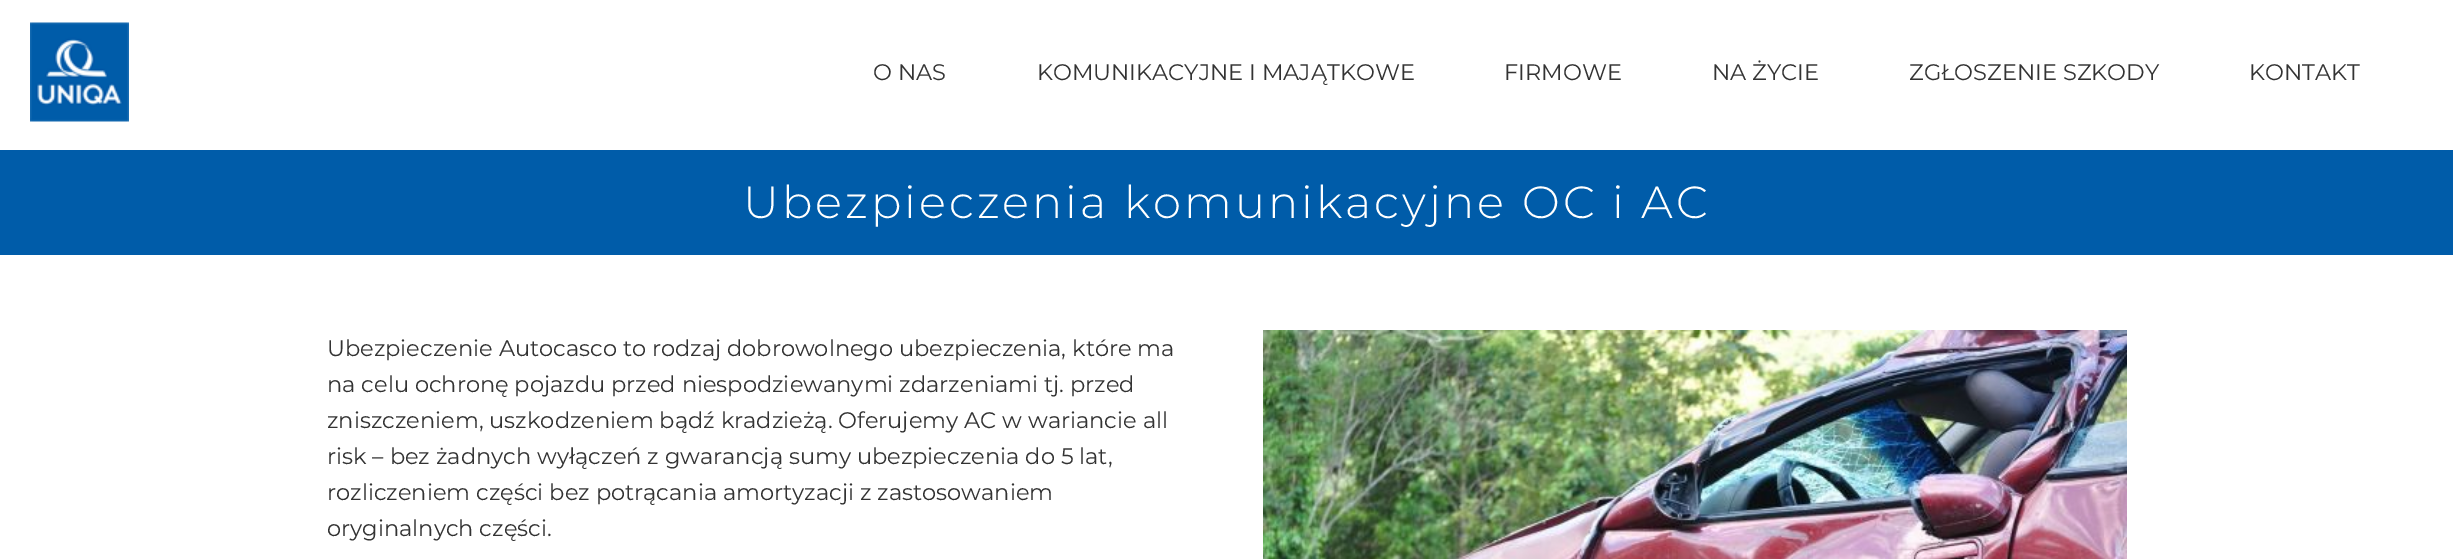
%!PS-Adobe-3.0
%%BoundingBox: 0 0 2453 559
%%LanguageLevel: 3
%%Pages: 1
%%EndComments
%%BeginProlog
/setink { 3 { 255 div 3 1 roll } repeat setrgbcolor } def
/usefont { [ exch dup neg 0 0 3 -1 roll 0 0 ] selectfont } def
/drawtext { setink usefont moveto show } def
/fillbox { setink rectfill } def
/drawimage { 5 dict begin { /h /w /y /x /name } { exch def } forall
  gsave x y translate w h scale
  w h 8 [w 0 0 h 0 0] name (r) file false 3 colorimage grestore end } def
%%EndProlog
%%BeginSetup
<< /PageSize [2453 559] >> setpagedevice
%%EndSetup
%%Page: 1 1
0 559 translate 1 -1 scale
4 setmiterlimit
0 0 2453 559 255 255 255 fillbox
(assets/img1.rgb) 30 22 99 100 drawimage
(O NAS) 873 80 /Montserrat-Regular 22.5 51 51 51 drawtext
(KOMUNIKACYJNE I MAJĄTKOWE) 1037 80 /Montserrat-Regular 22.5 51 51 51 drawtext
(FIRMOWE) 1504 80 /Montserrat-Regular 22.5 51 51 51 drawtext
(NA ŻYCIE) 1712 80 /Montserrat-Regular 22.5 51 51 51 drawtext
(ZGŁOSZENIE SZKODY) 1909 80 /Montserrat-Regular 22.5 51 51 51 drawtext
(KONTAKT) 2249 80 /Montserrat-Regular 22.5 51 51 51 drawtext
0 150 2453 105 0 92 169 fillbox
/Montserrat-Light 45 usefont
255 255 255 setink
743 218 moveto 3 0 (Ubezpieczenia komunikacyjne OC i AC) ashow
(Ubezpieczenie Autocasco to rodzaj dobrowolnego ubezpieczenia, które ma) 327 356 /Montserrat-Regular 22.5 51 51 51 drawtext
(na celu ochronę pojazdu przed niespodziewanymi zdarzeniami tj. przed) 327 392 /Montserrat-Regular 22.5 51 51 51 drawtext
(zniszczeniem, uszkodzeniem bądź kradzieżą. Oferujemy AC w wariancie all) 327 428 /Montserrat-Regular 22.5 51 51 51 drawtext
(risk – bez żadnych wyłączeń z gwarancją sumy ubezpieczenia do 5 lat,) 327 464 /Montserrat-Regular 22.5 51 51 51 drawtext
(rozliczeniem części bez potrącania amortyzacji z zastosowaniem) 327 500 /Montserrat-Regular 22.5 51 51 51 drawtext
(oryginalnych części.) 327 536 /Montserrat-Regular 22.5 51 51 51 drawtext
(assets/img2.rgb) 1263 330 864 229 drawimage
showpage
%%EOF
